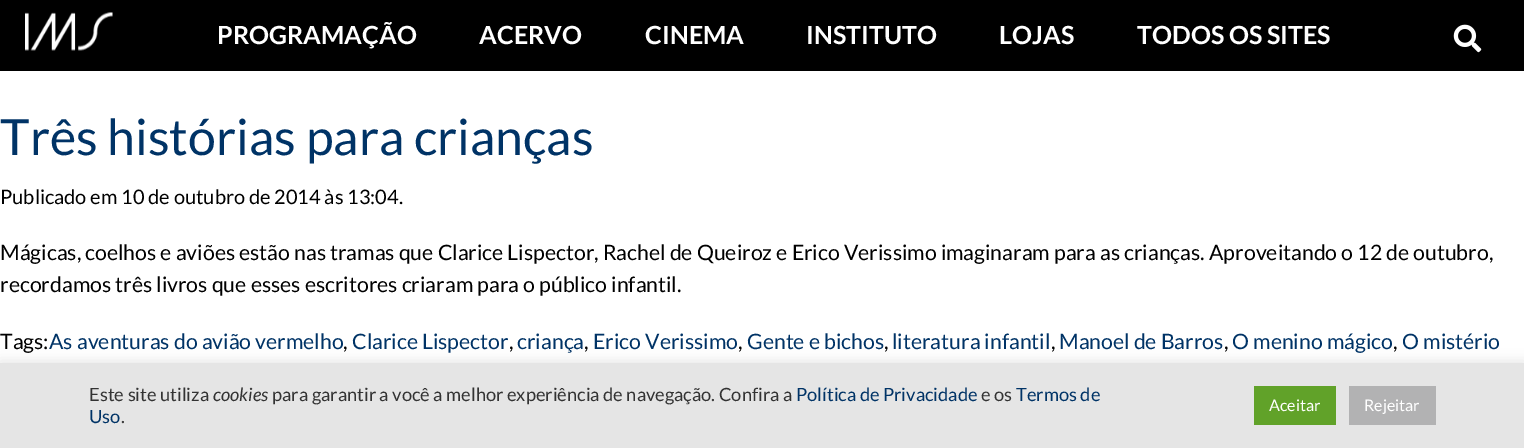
%!PS-Adobe-3.0
%%BoundingBox: 0 0 1524 448
%%LanguageLevel: 3
%%Pages: 1
%%EndComments
%%BeginProlog
/setink { 3 { 255 div 3 1 roll } repeat setrgbcolor } def
/usefont { [ exch dup neg 0 0 3 -1 roll 0 0 ] selectfont } def
/drawtext { setink usefont moveto show } def
/fillbox { setink rectfill } def
/setalpha { dup .setfillconstantalpha .setstrokeconstantalpha } def
/rrect { 5 dict begin { /r /h /w /y /x } { exch def } forall
  x r add y moveto x w add y 2 copy h add r arct x w add y h add x 1 index r arct
  x y h add x y r arct x y 2 copy exch w add exch r arct closepath end } def
/softshadow { 12 dict begin { /a /b /q /h /w /y /x } { exch def } forall gsave /was 0 def
  9 -2 -9 { dup b mul 4 div /e exch def 1 sub .425 mul 2.718 exch exp 1 add a .99 .min exch div /now exch def
    1 1 now sub 1 was sub div sub setalpha /was now def
    w h .min e 2 mul add 0 gt { x e sub y e sub w e 2 mul add h e 2 mul add
      q e add b .6 mul add w h .min 2 div e add .min 0 .max rrect fill } if } for grestore end } def
/drawimage { 5 dict begin { /h /w /y /x /name } { exch def } forall
  gsave x y translate w h scale
  w h 8 [w 0 0 h 0 0] name (r) file false 3 colorimage grestore end } def
%%EndProlog
%%BeginSetup
<< /PageSize [1524 448] /PageUsesTransparency true >> setpagedevice
%%EndSetup
%%Page: 1 1
0 .pushpdf14devicefilter
0 448 translate 1 -1 scale
4 setmiterlimit
0 0 1524 448 255 255 255 fillbox
0 0 1524 71 0 0 0 fillbox
(assets/img1.rgb) 25 12 88 39 drawimage
(PROGRAMAÇÃO) 217 44 /Lato-Bold 25 255 255 255 drawtext
(ACERVO) 479 44 /Lato-Bold 25 255 255 255 drawtext
(CINEMA) 645 44 /Lato-Bold 25 255 255 255 drawtext
(INSTITUTO) 806 44 /Lato-Bold 25 255 255 255 drawtext
(LOJAS) 999 44 /Lato-Bold 25 255 255 255 drawtext
(TODOS OS SITES) 1137 44 /Lato-Bold 25 255 255 255 drawtext
(assets/img2.rgb) 1453 24 29 29 drawimage
(Três histórias para crianças) 0 155 /Lato-Regular 50 0 51 102 drawtext
(Publicado em 10 de outubro de 2014 às 13:04.) 0 204 /Lato-Regular 20 0 0 0 drawtext
(Mágicas, coelhos e aviões estão nas tramas que Clarice Lispector, Rachel de Queiroz e Erico Verissimo imaginaram para as crianças. Aproveitando o 12 de outubro,) 0 260 /Lato-Regular 21.25 0 0 0 drawtext
(recordamos três livros que esses escritores criaram para o público infantil.) 0 292 /Lato-Regular 21.25 0 0 0 drawtext
(Tags:) 0 349 /Lato-Regular 21.25 0 0 0 drawtext
(As aventuras do avião vermelho) 49 349 /Lato-Regular 21.25 0 51 102 drawtext
(,) 343 349 /Lato-Regular 21.25 0 0 0 drawtext
(Clarice Lispector) 352 349 /Lato-Regular 21.25 0 51 102 drawtext
(,) 509 349 /Lato-Regular 21.25 0 0 0 drawtext
(criança) 517 349 /Lato-Regular 21.25 0 51 102 drawtext
(,) 584 349 /Lato-Regular 21.25 0 0 0 drawtext
(Erico Verissimo) 593 349 /Lato-Regular 21.25 0 51 102 drawtext
(,) 738 349 /Lato-Regular 21.25 0 0 0 drawtext
(Gente e bichos) 747 349 /Lato-Regular 21.25 0 51 102 drawtext
(,) 884 349 /Lato-Regular 21.25 0 0 0 drawtext
(literatura infantil) 892 349 /Lato-Regular 21.25 0 51 102 drawtext
(,) 1051 349 /Lato-Regular 21.25 0 0 0 drawtext
(Manoel de Barros) 1059 349 /Lato-Regular 21.25 0 51 102 drawtext
(,) 1224 349 /Lato-Regular 21.25 0 0 0 drawtext
(O menino mágico) 1232 349 /Lato-Regular 21.25 0 51 102 drawtext
(,) 1393 349 /Lato-Regular 21.25 0 0 0 drawtext
(O mistério) 1402 349 /Lato-Regular 21.25 0 51 102 drawtext
172 171 171 setink
0 361 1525 87 0 6 0.3 softshadow
0 363 1524 85 229 229 229 fillbox
(Este site utiliza) 89 401 /Lato-Regular 18.3 51 51 51 drawtext
(cookies) 213 401 /Lato-Italic 18.3 51 51 51 drawtext
(para garantir a você a melhor experiência de navegação. Confira a) 272 401 /Lato-Regular 18.3 51 51 51 drawtext
(Política de Privacidade) 796 401 /Lato-Regular 18.3 0 51 102 drawtext
(e os) 981 401 /Lato-Regular 18.3 51 51 51 drawtext
(Termos de) 1016 401 /Lato-Regular 18.3 0 51 102 drawtext
(Uso) 89 423 /Lato-Regular 18.3 0 51 102 drawtext
(.) 121 423 /Lato-Regular 18.3 51 51 51 drawtext
1254 386 82 39 97 162 41 fillbox
(Aceitar) 1269 411 /Lato-Regular 16 255 255 255 drawtext
1349 386 87 39 178 178 179 fillbox
(Rejeitar) 1364 411 /Lato-Regular 16 255 255 255 drawtext
.poppdf14devicefilter showpage
%%EOF
